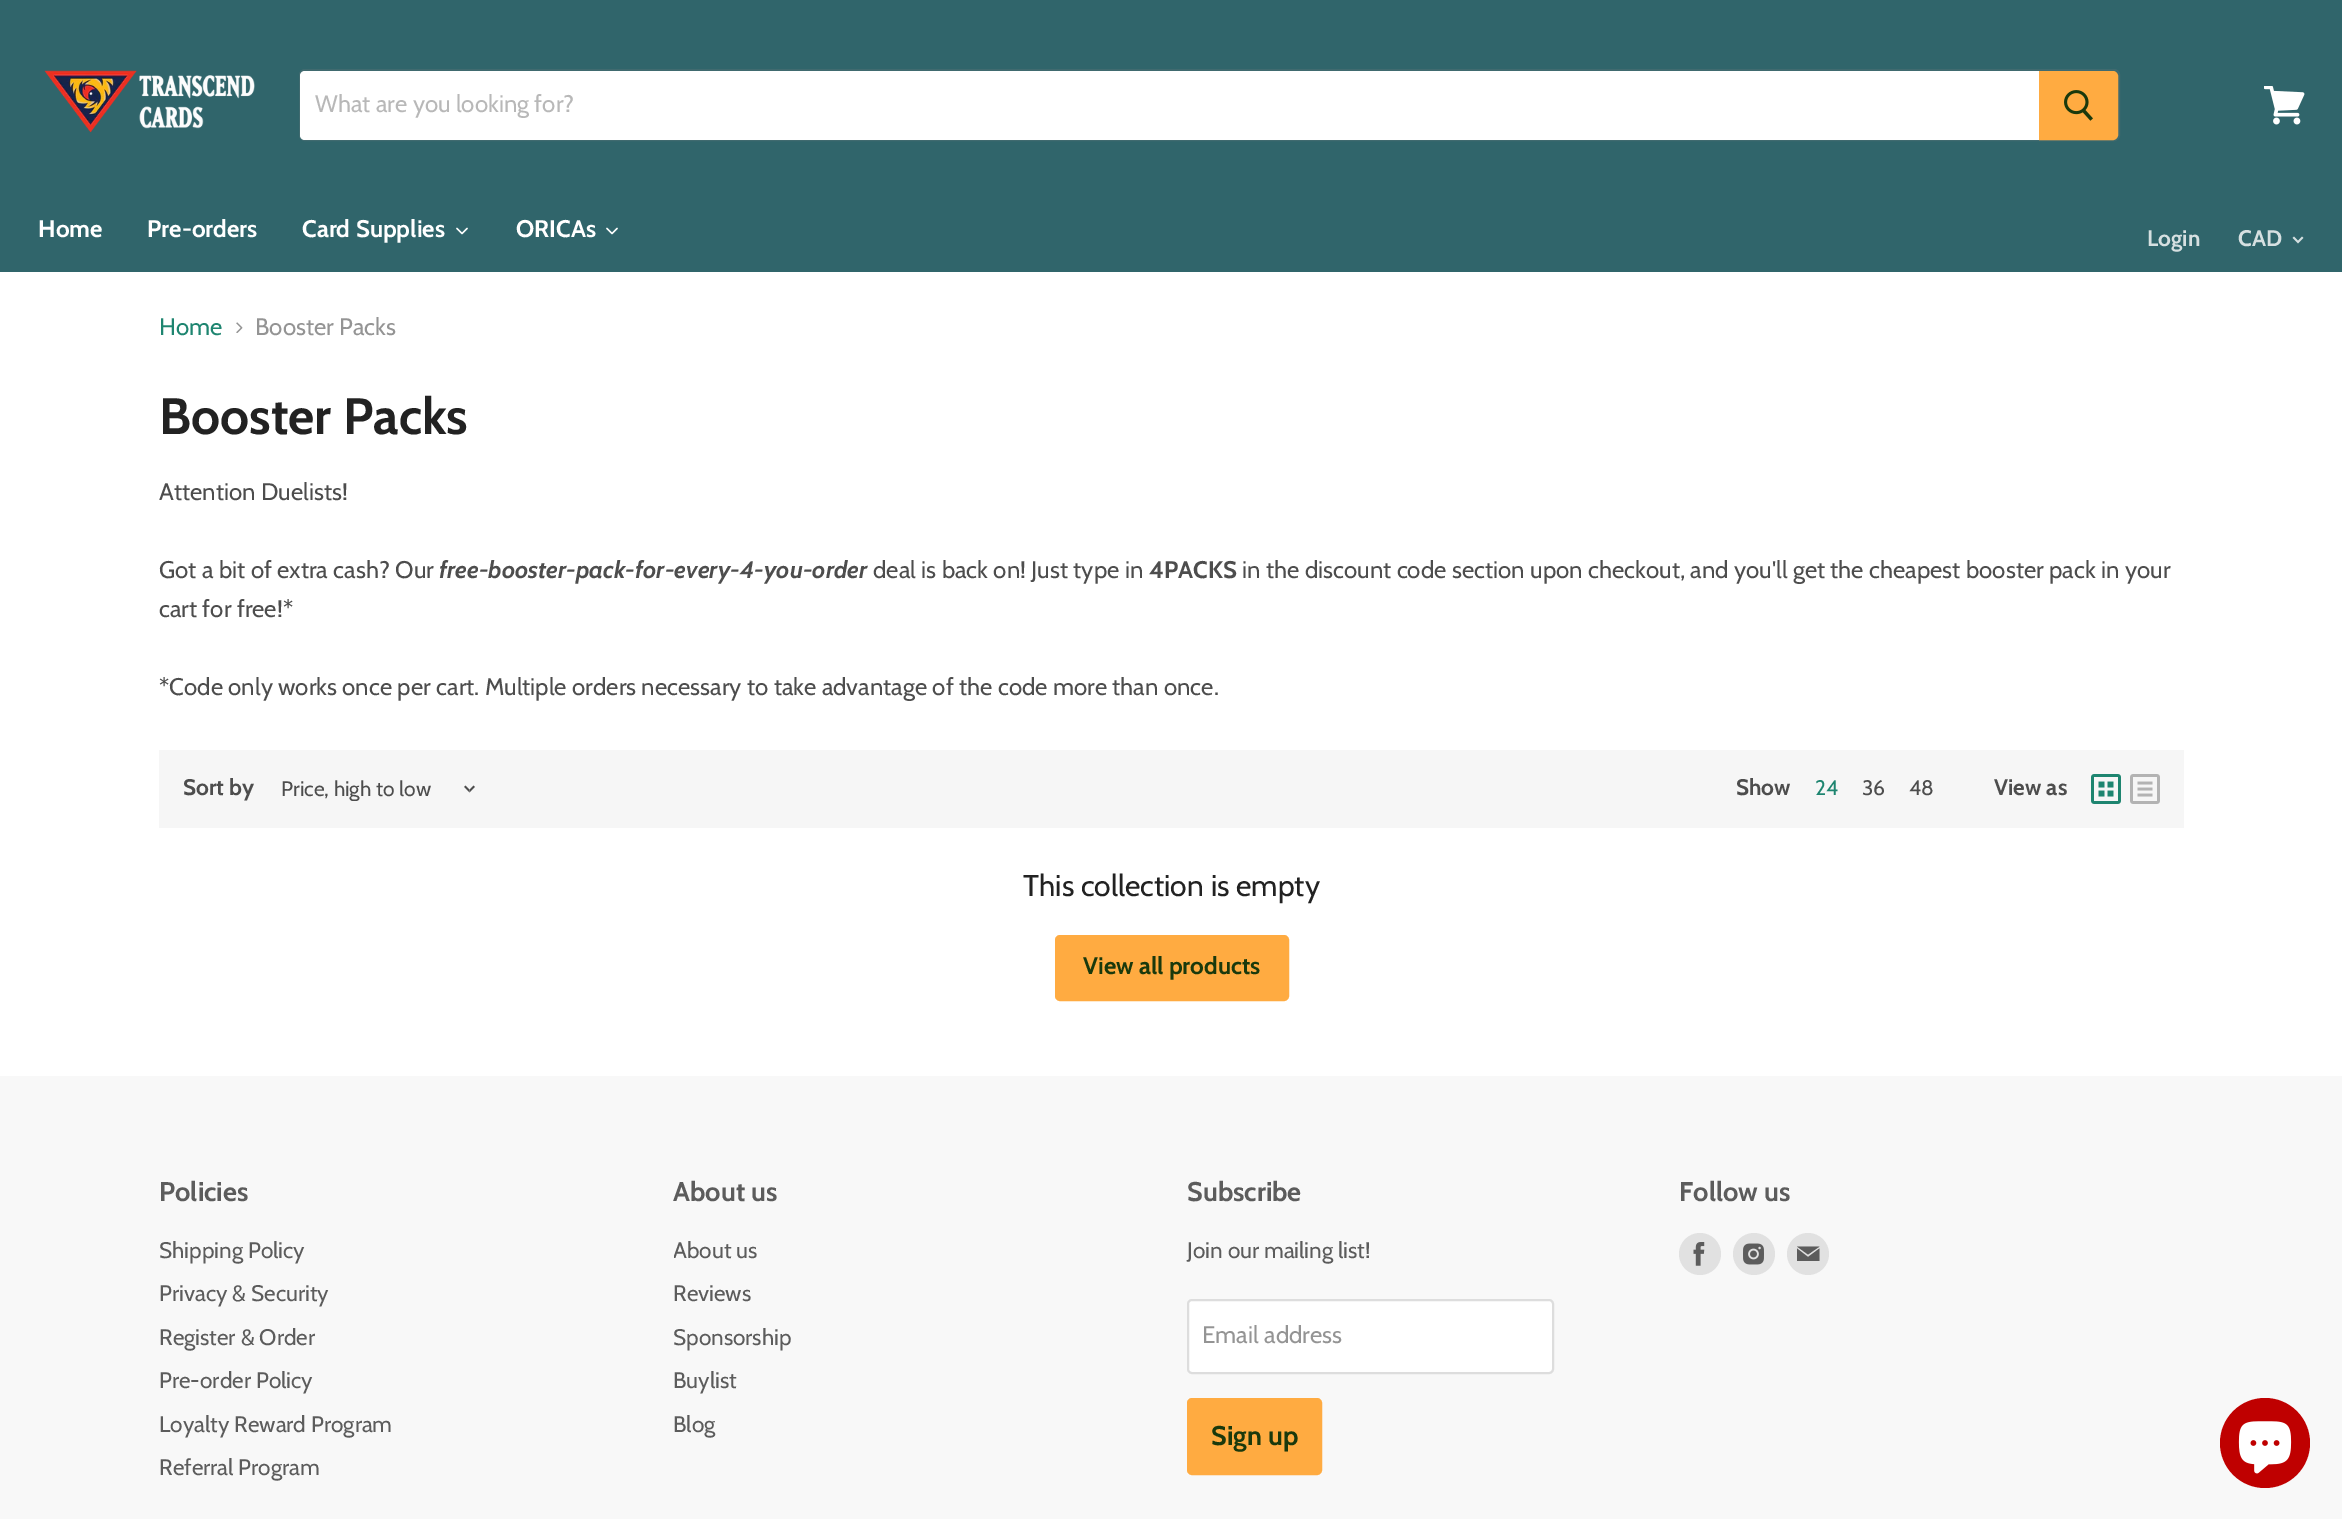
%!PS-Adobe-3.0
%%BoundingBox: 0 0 2342 1519
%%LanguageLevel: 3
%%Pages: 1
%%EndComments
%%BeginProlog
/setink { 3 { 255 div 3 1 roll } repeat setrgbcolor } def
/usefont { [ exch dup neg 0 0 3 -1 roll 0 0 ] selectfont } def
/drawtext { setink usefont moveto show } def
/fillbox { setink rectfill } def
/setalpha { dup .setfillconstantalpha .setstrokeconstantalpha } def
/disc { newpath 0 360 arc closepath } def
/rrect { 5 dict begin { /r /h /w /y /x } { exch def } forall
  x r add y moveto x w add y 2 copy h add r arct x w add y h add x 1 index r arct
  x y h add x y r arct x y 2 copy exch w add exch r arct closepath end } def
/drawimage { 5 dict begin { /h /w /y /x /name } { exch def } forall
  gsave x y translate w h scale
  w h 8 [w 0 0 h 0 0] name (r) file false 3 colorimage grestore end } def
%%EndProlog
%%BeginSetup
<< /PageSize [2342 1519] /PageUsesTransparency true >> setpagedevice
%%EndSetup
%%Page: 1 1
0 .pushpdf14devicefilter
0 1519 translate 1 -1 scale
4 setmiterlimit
0 0 2342 1519 255 255 255 fillbox
0 0 2342 272 48 101 107 fillbox
(assets/img1.rgb) 44 70 211 63 drawimage
0.2 setalpha
127 127 127 setink
2 setlinewidth
300 70 1819 70 5 rrect stroke
1 setalpha
255 255 255 setink
305 71 moveto 2039 71 lineto 2039 140 lineto 305 140 lineto 302 140 300 138 300 135 curveto 300 76 lineto 300 73 302 71 305 71 curveto closepath fill
(What are you looking for?) 315 112 /Cabin-Regular 24 184 184 184 drawtext
255 171 65 setink
2040 72 moveto 2113 72 lineto 2115 72 2117 74 2117 76 curveto 2117 135 lineto 2117 137 2115 139 2113 139 curveto 2040 139 lineto closepath gsave fill grestore
stroke
(assets/img2.rgb) 2064 90 29 31 drawimage
(assets/img3.rgb) 2264 86 41 39 drawimage
(Home) 38 237 /Cabin-Bold 24 255 255 255 drawtext
(Pre-orders) 147 237 /Cabin-Bold 24 255 255 255 drawtext
(Card Supplies) 302 237 /Cabin-Bold 24 255 255 255 drawtext
(assets/img4.rgb) 456 227 12 8 drawimage
(ORICAs) 516 237 /Cabin-Bold 24 255 255 255 drawtext
(assets/img4.rgb) 606 227 12 8 drawimage
(Login) 2147 246 /Cabin-Bold 22.5 214 224 225 drawtext
(CAD) 2238 246 /Cabin-Bold 22.5 214 224 225 drawtext
(assets/img5.rgb) 2292 236 12 8 drawimage
(Home) 159 335 /Cabin-Regular 24 30 133 112 drawtext
(assets/img6.rgb) 236 322 7 11 drawimage
(Booster Packs) 255 335 /Cabin-Regular 24 148 148 148 drawtext
(Booster Packs) 159 434 /Cabin-Bold 51 34 34 34 drawtext
(Attention Duelists!) 159 500 /Cabin-Regular 24 77 77 77 drawtext
(Got a bit of extra cash? Our) 159 578 /Cabin-Regular 24 77 77 77 drawtext
(free-booster-pack-for-every-4-you-order) 439 578 /Cabin-BoldItalic 24 77 77 77 drawtext
(deal is back on! Just type in) 873 578 /Cabin-Regular 24 77 77 77 drawtext
(4PACKS) 1149 578 /Cabin-Bold 24 77 77 77 drawtext
(in the discount code section upon checkout, and you'll get the cheapest booster pack in your) 1242 578 /Cabin-Regular 24 77 77 77 drawtext
(cart for free!*) 159 617 /Cabin-Regular 24 77 77 77 drawtext
(*Code only works once per cart. Multiple orders necessary to take advantage of the code more than once.) 159 695 /Cabin-Regular 24 77 77 77 drawtext
159 750 2025 78 246 246 246 fillbox
(Sort by) 183 795 /Cabin-Bold 22.5 77 77 77 drawtext
gsave
281 777 168 24 rectclip
(Price, high to low) 281 796 /Cabin-Regular 21 77 77 77 drawtext
grestore
(assets/img7.rgb) 464 785 11 8 drawimage
(Show) 1736 795 /Cabin-Bold 22.5 77 77 77 drawtext
(24) 1815 795 /Cabin-Regular 21 30 133 112 drawtext
(36) 1862 795 /Cabin-Regular 21 77 77 77 drawtext
(48) 1909 795 /Cabin-Regular 21 77 77 77 drawtext
(View as) 1994 795 /Cabin-Bold 22.5 77 77 77 drawtext
(assets/img8.rgb) 2091 774 30 30 drawimage
(assets/img9.rgb) 2130 774 30 30 drawimage
(This collection is empty) 1023 896 /Cabin-Regular 30 34 34 34 drawtext
255 171 65 setink
1056 936 232 64 4 rrect gsave fill grestore
stroke
(View all products) 1083 974 /Cabin-Bold 24 26 57 12 drawtext
0 1076 2342 443 248 248 248 fillbox
(Policies) 159 1201 /Cabin-Bold 27 92 92 92 drawtext
(Shipping Policy) 159 1258 /Cabin-Regular 22.5 92 92 92 drawtext
(Privacy & Security) 159 1301 /Cabin-Regular 22.5 92 92 92 drawtext
(Register & Order) 159 1345 /Cabin-Regular 22.5 92 92 92 drawtext
(Pre-order Policy) 159 1388 /Cabin-Regular 22.5 92 92 92 drawtext
(Loyalty Reward Program) 159 1432 /Cabin-Regular 22.5 92 92 92 drawtext
(Referral Program) 159 1475 /Cabin-Regular 22.5 92 92 92 drawtext
(About us) 673 1201 /Cabin-Bold 27 92 92 92 drawtext
gsave
674 1233 453 210 rectclip
(About us) 673 1258 /Cabin-Regular 22.5 92 92 92 drawtext
grestore
(Reviews) 673 1301 /Cabin-Regular 22.5 92 92 92 drawtext
(Sponsorship) 673 1345 /Cabin-Regular 22.5 92 92 92 drawtext
(Buylist) 673 1388 /Cabin-Regular 22.5 92 92 92 drawtext
(Blog) 673 1432 /Cabin-Regular 22.5 92 92 92 drawtext
(Subscribe) 1187 1201 /Cabin-Bold 27 92 92 92 drawtext
(Join our mailing list!) 1187 1258 /Cabin-Regular 22.5 92 92 92 drawtext
255 255 255 setink
1188 1300 365 73 4 rrect gsave fill grestore
221 221 221 setink
stroke
(Email address) 1202 1343 /Cabin-Regular 24 148 148 148 drawtext
255 171 65 setink
1188 1399 133 75 4 rrect gsave fill grestore
stroke
(Sign up) 1211 1445 /Cabin-Bold 27 26 57 12 drawtext
(Follow us) 1679 1201 /Cabin-Bold 27 92 92 92 drawtext
225 225 225 setink
1700 1254 21 disc fill
(assets/img10.rgb) 1693 1242 12 24 drawimage
1754 1254 21 disc fill
(assets/img11.rgb) 1743 1243 21 22 drawimage
1808 1254 21 disc fill
92 92 92 setink
1819.5 1246.5 moveto 1797 1246.5 lineto 1808 1254.5 lineto closepath 1808 1257 moveto 1797 1248.5 lineto 1797 1261 lineto 1819.5 1261 lineto 1819.5 1248.5 lineto closepath eofill
191 0 0 setink
2265 1443 45 disc fill
(assets/img12.rgb) 2238 1421 54 53 drawimage
.poppdf14devicefilter showpage
%%EOF
